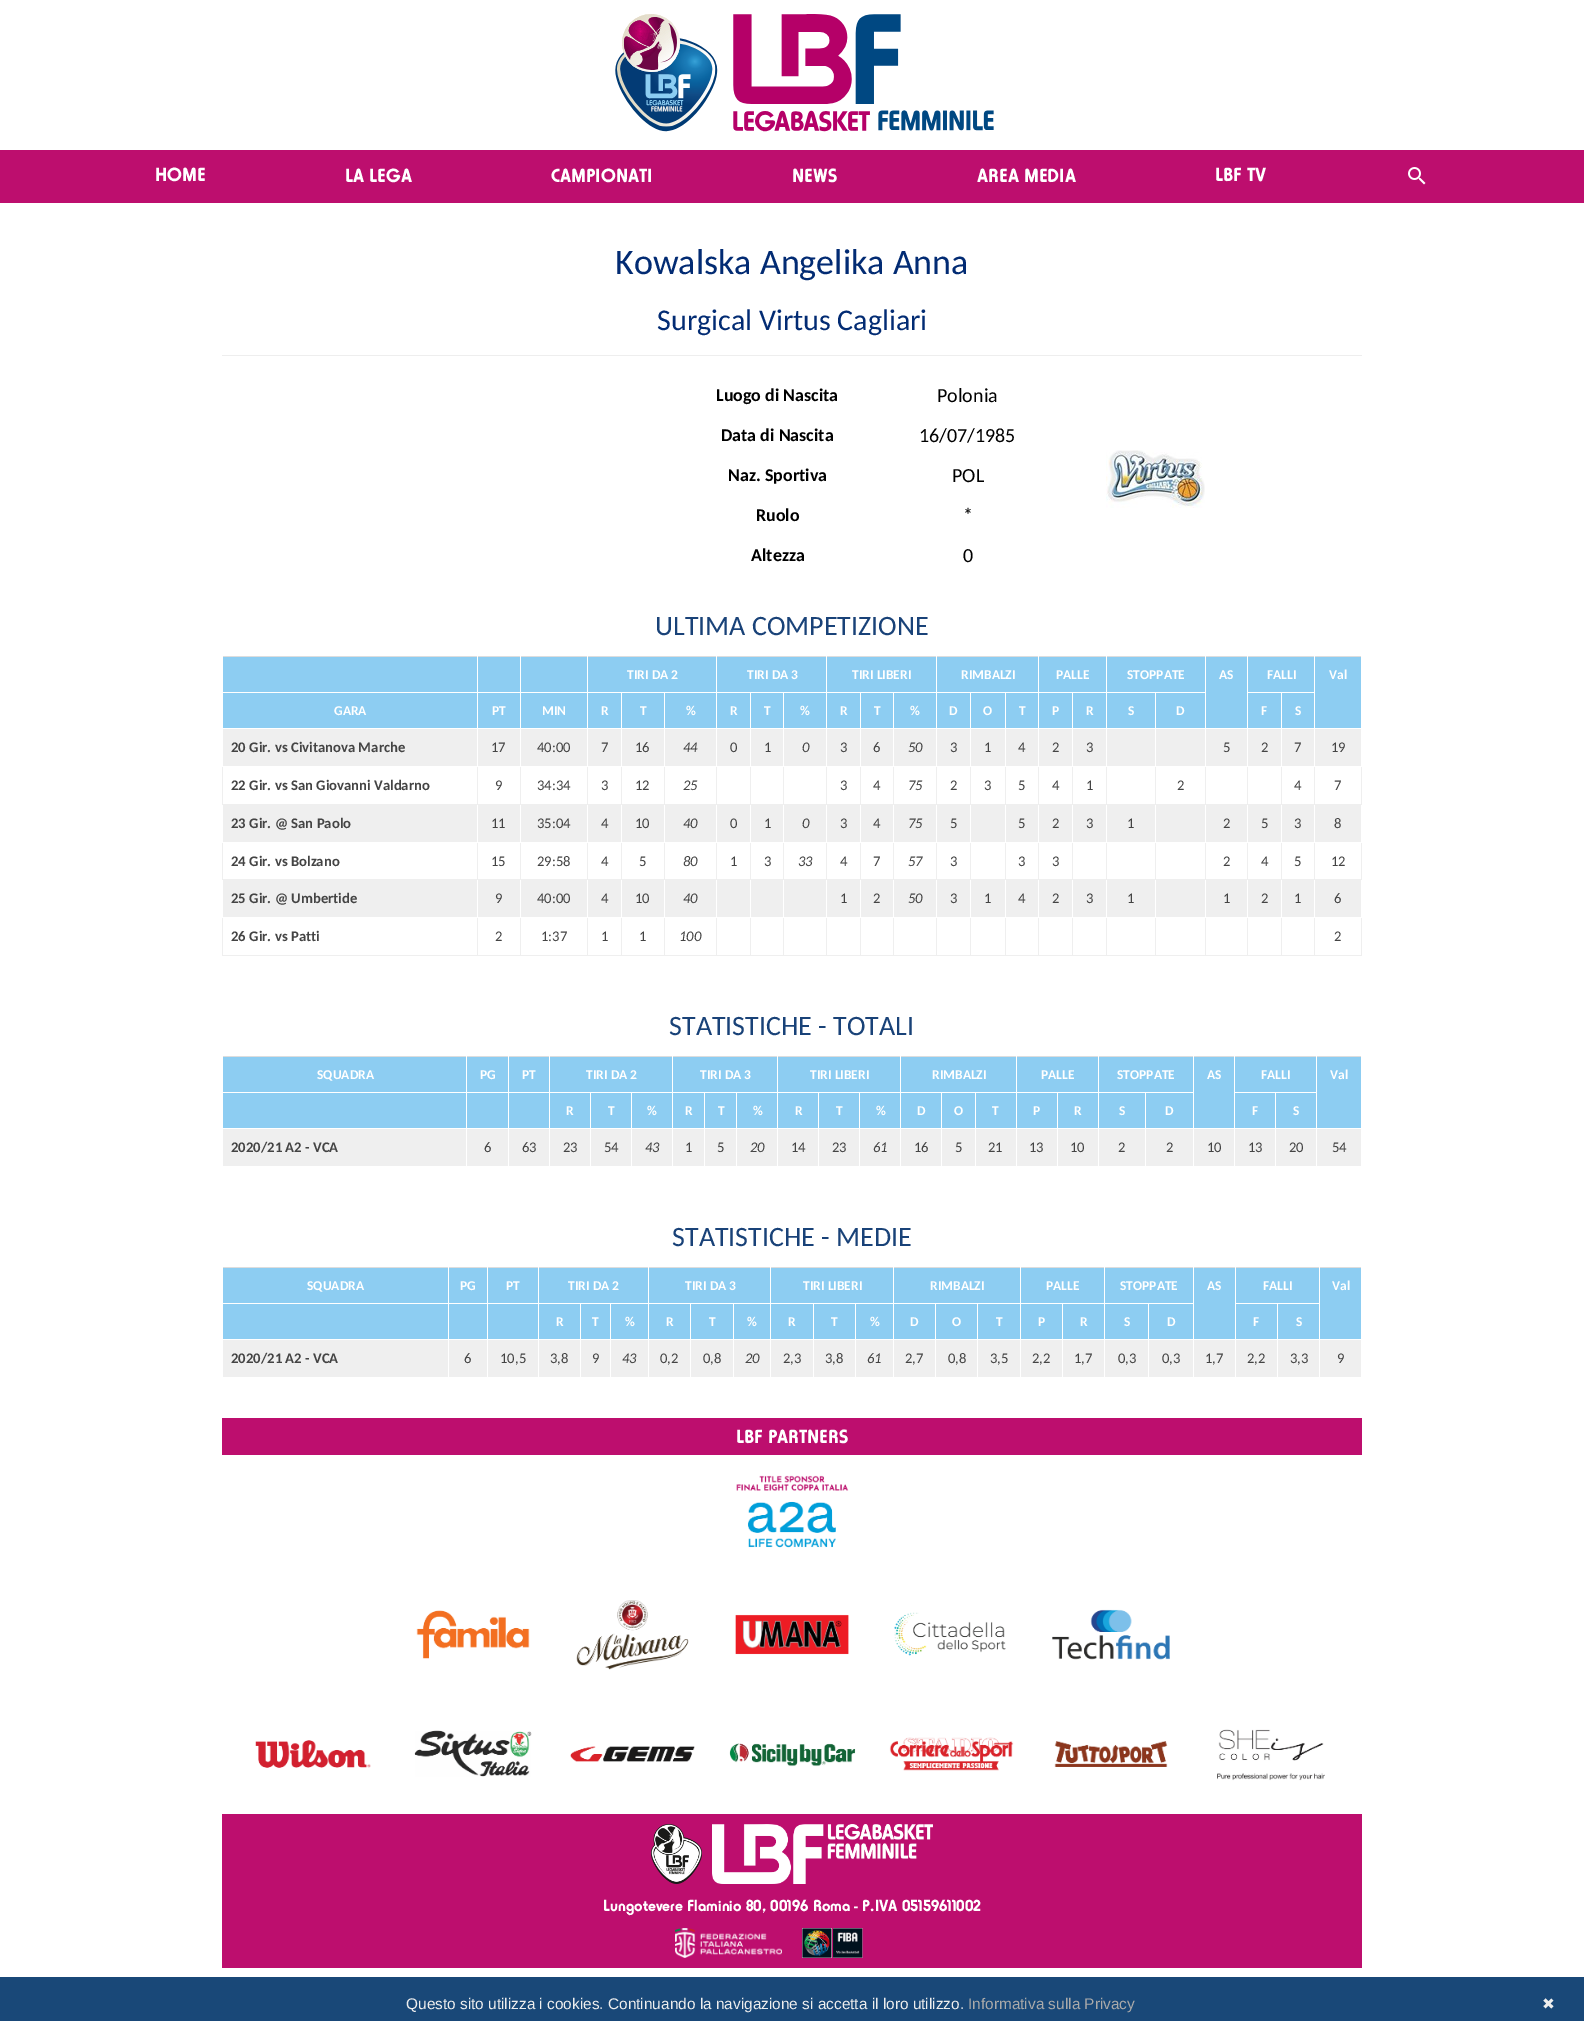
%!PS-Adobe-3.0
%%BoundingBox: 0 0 1584 2021
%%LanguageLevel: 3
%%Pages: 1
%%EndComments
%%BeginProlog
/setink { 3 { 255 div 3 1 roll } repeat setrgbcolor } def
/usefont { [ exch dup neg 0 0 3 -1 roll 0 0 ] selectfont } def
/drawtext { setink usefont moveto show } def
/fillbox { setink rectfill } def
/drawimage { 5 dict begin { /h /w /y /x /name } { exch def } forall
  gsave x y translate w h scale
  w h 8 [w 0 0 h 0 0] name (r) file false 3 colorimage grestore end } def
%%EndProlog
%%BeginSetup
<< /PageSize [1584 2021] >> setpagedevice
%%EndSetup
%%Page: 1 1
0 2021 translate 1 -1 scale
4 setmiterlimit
0 0 1584 2021 255 255 255 fillbox
(assets/img1.rgb) 615 14 379 118 drawimage
0 150 1584 53 189 14 110 fillbox
(HOME) 155 181 /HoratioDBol-Bold 20 255 255 255 drawtext
(LA LEGA) 345 182 /HoratioDBol-Bold 20 255 255 255 drawtext
(CAMPIONATI) 551 182 /HoratioDBol-Bold 20 255 255 255 drawtext
(NEWS) 792 182 /HoratioDBol-Bold 20 255 255 255 drawtext
(AREA MEDIA) 977 182 /HoratioDBol-Bold 20 255 255 255 drawtext
(LBF TV) 1215 181 /HoratioDBol-Bold 20 255 255 255 drawtext
(assets/img2.rgb) 1408 167 18 18 drawimage
222 355 1140 1 238 238 238 fillbox
(Kowalska Angelika Anna) 615 274 /Carlito-Regular 36 2 43 115 drawtext
(Surgical Virtus Cagliari) 657 330 /Carlito-Regular 30 2 43 115 drawtext
(Luogo di Nascita) 716 401 /Carlito-Bold 18 0 0 0 drawtext
(Polonia) 937 402 /Carlito-Regular 20 0 0 0 drawtext
(assets/img3.rgb) 1106 450 99 58 drawimage
(Data di Nascita) 721 441 /Carlito-Bold 18 0 0 0 drawtext
(16/07/1985) 919 442 /Carlito-Regular 20 0 0 0 drawtext
(Naz. Sportiva) 728 481 /Carlito-Bold 18 0 0 0 drawtext
(POL) 952 482 /Carlito-Regular 20 0 0 0 drawtext
(Ruolo) 756 521 /Carlito-Bold 18 0 0 0 drawtext
(*) 963 522 /Carlito-Regular 20 0 0 0 drawtext
(Altezza) 751 561 /Carlito-Bold 18 0 0 0 drawtext
(0) 963 562 /Carlito-Regular 20 0 0 0 drawtext
(ULTIMA COMPETIZIONE) 655 635 /Carlito-Regular 28 25 66 120 drawtext
223 657 254 35 141 205 242 fillbox
222 656 1140 1 221 221 221 fillbox
477 656 1 1 255 255 255 fillbox
222 656 1 1 255 255 255 fillbox
478 657 42 35 141 205 242 fillbox
520 656 1 1 255 255 255 fillbox
521 657 66 35 141 205 242 fillbox
587 656 1 1 255 255 255 fillbox
588 657 128 35 141 205 242 fillbox
716 656 1 1 255 255 255 fillbox
(TIRI DA 2) 627 679 /Carlito-Bold 13.5 255 255 255 drawtext
717 657 109 35 141 205 242 fillbox
826 656 1 1 255 255 255 fillbox
(TIRI DA 3) 747 679 /Carlito-Bold 13.5 255 255 255 drawtext
827 657 109 35 141 205 242 fillbox
936 656 1 1 255 255 255 fillbox
(TIRI LIBERI) 852 679 /Carlito-Bold 13.5 255 255 255 drawtext
937 657 101 35 141 205 242 fillbox
1038 656 1 1 255 255 255 fillbox
(RIMBALZI) 961 679 /Carlito-Bold 13.5 255 255 255 drawtext
1039 657 67 35 141 205 242 fillbox
1106 656 1 1 255 255 255 fillbox
(PALLE) 1056 679 /Carlito-Bold 13.5 255 255 255 drawtext
1107 657 98 35 141 205 242 fillbox
1205 656 1 1 255 255 255 fillbox
(STOPPATE) 1127 679 /Carlito-Bold 13.5 255 255 255 drawtext
1206 657 41 71 141 205 242 fillbox
1247 656 1 1 255 255 255 fillbox
(AS) 1219 679 /Carlito-Bold 13.5 255 255 255 drawtext
1248 657 66 35 141 205 242 fillbox
1314 656 1 1 255 255 255 fillbox
(FALLI) 1267 679 /Carlito-Bold 13.5 255 255 255 drawtext
1315 657 46 71 141 205 242 fillbox
1361 656 1 1 255 255 255 fillbox
(Val) 1329 679 /Carlito-Bold 13.5 255 255 255 drawtext
223 693 254 35 141 205 242 fillbox
(GARA) 334 715 /Carlito-Bold 13.5 255 255 255 drawtext
478 693 42 35 141 205 242 fillbox
(PT) 492 715 /Carlito-Bold 13.5 255 255 255 drawtext
521 693 66 35 141 205 242 fillbox
(MIN) 542 715 /Carlito-Bold 13.5 255 255 255 drawtext
588 693 33 35 141 205 242 fillbox
(R) 601 715 /Carlito-Bold 13.5 255 255 255 drawtext
622 693 42 35 141 205 242 fillbox
(T) 640 715 /Carlito-Bold 13.5 255 255 255 drawtext
665 693 51 35 141 205 242 fillbox
(%) 686 715 /Carlito-Bold 13.5 255 255 255 drawtext
717 693 33 35 141 205 242 fillbox
(R) 730 715 /Carlito-Bold 13.5 255 255 255 drawtext
751 693 32 35 141 205 242 fillbox
(T) 764 715 /Carlito-Bold 13.5 255 255 255 drawtext
784 693 42 35 141 205 242 fillbox
(%) 800 715 /Carlito-Bold 13.5 255 255 255 drawtext
827 693 33 35 141 205 242 fillbox
(R) 840 715 /Carlito-Bold 13.5 255 255 255 drawtext
861 693 32 35 141 205 242 fillbox
(T) 874 715 /Carlito-Bold 13.5 255 255 255 drawtext
894 693 42 35 141 205 242 fillbox
(%) 910 715 /Carlito-Bold 13.5 255 255 255 drawtext
937 693 33 35 141 205 242 fillbox
(D) 949 715 /Carlito-Bold 13.5 255 255 255 drawtext
971 693 34 35 141 205 242 fillbox
(O) 983 715 /Carlito-Bold 13.5 255 255 255 drawtext
1006 693 32 35 141 205 242 fillbox
(T) 1019 715 /Carlito-Bold 13.5 255 255 255 drawtext
1039 693 33 35 141 205 242 fillbox
(P) 1052 715 /Carlito-Bold 13.5 255 255 255 drawtext
1073 693 33 35 141 205 242 fillbox
(R) 1086 715 /Carlito-Bold 13.5 255 255 255 drawtext
1107 693 48 35 141 205 242 fillbox
(S) 1128 715 /Carlito-Bold 13.5 255 255 255 drawtext
1156 693 49 35 141 205 242 fillbox
(D) 1176 715 /Carlito-Bold 13.5 255 255 255 drawtext
1248 693 33 35 141 205 242 fillbox
(F) 1261 715 /Carlito-Bold 13.5 255 255 255 drawtext
1282 693 32 35 141 205 242 fillbox
(S) 1295 715 /Carlito-Bold 13.5 255 255 255 drawtext
223 729 254 37 239 239 239 fillbox
1361 766 1 39 239 239 239 fillbox
1314 804 48 1 239 239 239 fillbox
1314 766 1 39 239 239 239 fillbox
1281 804 34 1 239 239 239 fillbox
1281 766 1 39 239 239 239 fillbox
1247 804 35 1 239 239 239 fillbox
1247 766 1 39 239 239 239 fillbox
1205 804 43 1 239 239 239 fillbox
1205 766 1 39 239 239 239 fillbox
1155 804 51 1 239 239 239 fillbox
1155 766 1 39 239 239 239 fillbox
1106 804 50 1 239 239 239 fillbox
1106 766 1 39 239 239 239 fillbox
1072 804 35 1 239 239 239 fillbox
1072 766 1 39 239 239 239 fillbox
1038 804 35 1 239 239 239 fillbox
1038 766 1 39 239 239 239 fillbox
1005 804 34 1 239 239 239 fillbox
1005 766 1 39 239 239 239 fillbox
970 804 36 1 239 239 239 fillbox
970 766 1 39 239 239 239 fillbox
936 804 35 1 239 239 239 fillbox
936 766 1 39 239 239 239 fillbox
893 804 44 1 239 239 239 fillbox
893 766 1 39 239 239 239 fillbox
860 804 34 1 239 239 239 fillbox
860 766 1 39 239 239 239 fillbox
826 804 35 1 239 239 239 fillbox
826 766 1 39 239 239 239 fillbox
783 804 44 1 239 239 239 fillbox
783 766 1 39 239 239 239 fillbox
750 804 34 1 239 239 239 fillbox
750 766 1 39 239 239 239 fillbox
716 804 35 1 239 239 239 fillbox
716 766 1 39 239 239 239 fillbox
664 804 53 1 239 239 239 fillbox
664 766 1 39 239 239 239 fillbox
621 804 44 1 239 239 239 fillbox
621 766 1 39 239 239 239 fillbox
587 804 35 1 239 239 239 fillbox
587 766 1 39 239 239 239 fillbox
520 804 68 1 239 239 239 fillbox
520 766 1 39 239 239 239 fillbox
477 804 44 1 239 239 239 fillbox
477 766 1 39 239 239 239 fillbox
222 804 256 1 239 239 239 fillbox
222 766 1 39 239 239 239 fillbox
222 766 1 1 255 255 255 fillbox
(20 Gir. vs Civitanova Marche) 231 752 /Carlito-Bold 14.7 68 68 68 drawtext
478 729 42 37 239 239 239 fillbox
477 766 1 1 255 255 255 fillbox
(17) 491 752 /Carlito-Regular 14.7 68 68 68 drawtext
521 729 66 37 239 239 239 fillbox
520 766 1 1 255 255 255 fillbox
(40:00) 537 752 /Carlito-Regular 14.7 68 68 68 drawtext
588 729 33 37 239 239 239 fillbox
587 766 1 1 255 255 255 fillbox
(7) 601 752 /Carlito-Regular 14.7 68 68 68 drawtext
622 729 42 37 239 239 239 fillbox
621 766 1 1 255 255 255 fillbox
(16) 635 752 /Carlito-Regular 14.7 68 68 68 drawtext
665 729 51 37 239 239 239 fillbox
664 766 1 1 255 255 255 fillbox
(44) 683 752 /Carlito-Italic 14.7 68 68 68 drawtext
717 729 33 37 239 239 239 fillbox
716 766 1 1 255 255 255 fillbox
(0) 730 752 /Carlito-Regular 14.7 68 68 68 drawtext
751 729 32 37 239 239 239 fillbox
750 766 1 1 255 255 255 fillbox
(1) 764 752 /Carlito-Regular 14.7 68 68 68 drawtext
784 729 42 37 239 239 239 fillbox
783 766 1 1 255 255 255 fillbox
(0) 802 752 /Carlito-Italic 14.7 68 68 68 drawtext
827 729 33 37 239 239 239 fillbox
826 766 1 1 255 255 255 fillbox
(3) 840 752 /Carlito-Regular 14.7 68 68 68 drawtext
861 729 32 37 239 239 239 fillbox
860 766 1 1 255 255 255 fillbox
(6) 873 752 /Carlito-Regular 14.7 68 68 68 drawtext
894 729 42 37 239 239 239 fillbox
893 766 1 1 255 255 255 fillbox
(50) 908 752 /Carlito-Italic 14.7 68 68 68 drawtext
937 729 33 37 239 239 239 fillbox
936 766 1 1 255 255 255 fillbox
(3) 950 752 /Carlito-Regular 14.7 68 68 68 drawtext
971 729 34 37 239 239 239 fillbox
970 766 1 1 255 255 255 fillbox
(1) 984 752 /Carlito-Regular 14.7 68 68 68 drawtext
1006 729 32 37 239 239 239 fillbox
1005 766 1 1 255 255 255 fillbox
(4) 1018 752 /Carlito-Regular 14.7 68 68 68 drawtext
1039 729 33 37 239 239 239 fillbox
1038 766 1 1 255 255 255 fillbox
(2) 1052 752 /Carlito-Regular 14.7 68 68 68 drawtext
1073 729 33 37 239 239 239 fillbox
1072 766 1 1 255 255 255 fillbox
(3) 1086 752 /Carlito-Regular 14.7 68 68 68 drawtext
1107 729 48 37 239 239 239 fillbox
1106 766 1 1 255 255 255 fillbox
1156 729 49 37 239 239 239 fillbox
1155 766 1 1 255 255 255 fillbox
1206 729 41 37 239 239 239 fillbox
1205 766 1 1 255 255 255 fillbox
(5) 1223 752 /Carlito-Regular 14.7 68 68 68 drawtext
1248 729 33 37 239 239 239 fillbox
1247 766 1 1 255 255 255 fillbox
(2) 1261 752 /Carlito-Regular 14.7 68 68 68 drawtext
1282 729 32 37 239 239 239 fillbox
1281 766 1 1 255 255 255 fillbox
(7) 1294 752 /Carlito-Regular 14.7 68 68 68 drawtext
1315 729 46 37 239 239 239 fillbox
1361 766 1 1 255 255 255 fillbox
1314 766 1 1 255 255 255 fillbox
(19) 1331 752 /Carlito-Regular 14.7 68 68 68 drawtext
(22 Gir. vs San Giovanni Valdarno) 231 790 /Carlito-Bold 14.7 68 68 68 drawtext
(9) 495 790 /Carlito-Regular 14.7 68 68 68 drawtext
(34:34) 537 790 /Carlito-Regular 14.7 68 68 68 drawtext
(3) 601 790 /Carlito-Regular 14.7 68 68 68 drawtext
(12) 635 790 /Carlito-Regular 14.7 68 68 68 drawtext
(25) 683 790 /Carlito-Italic 14.7 68 68 68 drawtext
(3) 840 790 /Carlito-Regular 14.7 68 68 68 drawtext
(4) 873 790 /Carlito-Regular 14.7 68 68 68 drawtext
(75) 908 790 /Carlito-Italic 14.7 68 68 68 drawtext
(2) 950 790 /Carlito-Regular 14.7 68 68 68 drawtext
(3) 984 790 /Carlito-Regular 14.7 68 68 68 drawtext
(5) 1018 790 /Carlito-Regular 14.7 68 68 68 drawtext
(4) 1052 790 /Carlito-Regular 14.7 68 68 68 drawtext
(1) 1086 790 /Carlito-Regular 14.7 68 68 68 drawtext
(2) 1177 790 /Carlito-Regular 14.7 68 68 68 drawtext
(4) 1294 790 /Carlito-Regular 14.7 68 68 68 drawtext
(7) 1334 790 /Carlito-Regular 14.7 68 68 68 drawtext
223 805 254 37 239 239 239 fillbox
1361 842 1 38 239 239 239 fillbox
1314 879 48 1 239 239 239 fillbox
1314 842 1 38 239 239 239 fillbox
1281 879 34 1 239 239 239 fillbox
1281 842 1 38 239 239 239 fillbox
1247 879 35 1 239 239 239 fillbox
1247 842 1 38 239 239 239 fillbox
1205 879 43 1 239 239 239 fillbox
1205 842 1 38 239 239 239 fillbox
1155 879 51 1 239 239 239 fillbox
1155 842 1 38 239 239 239 fillbox
1106 879 50 1 239 239 239 fillbox
1106 842 1 38 239 239 239 fillbox
1072 879 35 1 239 239 239 fillbox
1072 842 1 38 239 239 239 fillbox
1038 879 35 1 239 239 239 fillbox
1038 842 1 38 239 239 239 fillbox
1005 879 34 1 239 239 239 fillbox
1005 842 1 38 239 239 239 fillbox
970 879 36 1 239 239 239 fillbox
970 842 1 38 239 239 239 fillbox
936 879 35 1 239 239 239 fillbox
936 842 1 38 239 239 239 fillbox
893 879 44 1 239 239 239 fillbox
893 842 1 38 239 239 239 fillbox
860 879 34 1 239 239 239 fillbox
860 842 1 38 239 239 239 fillbox
826 879 35 1 239 239 239 fillbox
826 842 1 38 239 239 239 fillbox
783 879 44 1 239 239 239 fillbox
783 842 1 38 239 239 239 fillbox
750 879 34 1 239 239 239 fillbox
750 842 1 38 239 239 239 fillbox
716 879 35 1 239 239 239 fillbox
716 842 1 38 239 239 239 fillbox
664 879 53 1 239 239 239 fillbox
664 842 1 38 239 239 239 fillbox
621 879 44 1 239 239 239 fillbox
621 842 1 38 239 239 239 fillbox
587 879 35 1 239 239 239 fillbox
587 842 1 38 239 239 239 fillbox
520 879 68 1 239 239 239 fillbox
520 842 1 38 239 239 239 fillbox
477 879 44 1 239 239 239 fillbox
477 842 1 38 239 239 239 fillbox
222 879 256 1 239 239 239 fillbox
222 842 1 38 239 239 239 fillbox
222 842 1 1 255 255 255 fillbox
(23 Gir. @ San Paolo) 231 828 /Carlito-Bold 14.7 68 68 68 drawtext
478 805 42 37 239 239 239 fillbox
477 842 1 1 255 255 255 fillbox
(11) 491 828 /Carlito-Regular 14.7 68 68 68 drawtext
521 805 66 37 239 239 239 fillbox
520 842 1 1 255 255 255 fillbox
(35:04) 537 828 /Carlito-Regular 14.7 68 68 68 drawtext
588 805 33 37 239 239 239 fillbox
587 842 1 1 255 255 255 fillbox
(4) 601 828 /Carlito-Regular 14.7 68 68 68 drawtext
622 805 42 37 239 239 239 fillbox
621 842 1 1 255 255 255 fillbox
(10) 635 828 /Carlito-Regular 14.7 68 68 68 drawtext
665 805 51 37 239 239 239 fillbox
664 842 1 1 255 255 255 fillbox
(40) 683 828 /Carlito-Italic 14.7 68 68 68 drawtext
717 805 33 37 239 239 239 fillbox
716 842 1 1 255 255 255 fillbox
(0) 730 828 /Carlito-Regular 14.7 68 68 68 drawtext
751 805 32 37 239 239 239 fillbox
750 842 1 1 255 255 255 fillbox
(1) 764 828 /Carlito-Regular 14.7 68 68 68 drawtext
784 805 42 37 239 239 239 fillbox
783 842 1 1 255 255 255 fillbox
(0) 802 828 /Carlito-Italic 14.7 68 68 68 drawtext
827 805 33 37 239 239 239 fillbox
826 842 1 1 255 255 255 fillbox
(3) 840 828 /Carlito-Regular 14.7 68 68 68 drawtext
861 805 32 37 239 239 239 fillbox
860 842 1 1 255 255 255 fillbox
(4) 873 828 /Carlito-Regular 14.7 68 68 68 drawtext
894 805 42 37 239 239 239 fillbox
893 842 1 1 255 255 255 fillbox
(75) 908 828 /Carlito-Italic 14.7 68 68 68 drawtext
937 805 33 37 239 239 239 fillbox
936 842 1 1 255 255 255 fillbox
(5) 950 828 /Carlito-Regular 14.7 68 68 68 drawtext
971 805 34 37 239 239 239 fillbox
970 842 1 1 255 255 255 fillbox
1006 805 32 37 239 239 239 fillbox
1005 842 1 1 255 255 255 fillbox
(5) 1018 828 /Carlito-Regular 14.7 68 68 68 drawtext
1039 805 33 37 239 239 239 fillbox
1038 842 1 1 255 255 255 fillbox
(2) 1052 828 /Carlito-Regular 14.7 68 68 68 drawtext
1073 805 33 37 239 239 239 fillbox
1072 842 1 1 255 255 255 fillbox
(3) 1086 828 /Carlito-Regular 14.7 68 68 68 drawtext
1107 805 48 37 239 239 239 fillbox
1106 842 1 1 255 255 255 fillbox
(1) 1127 828 /Carlito-Regular 14.7 68 68 68 drawtext
1156 805 49 37 239 239 239 fillbox
1155 842 1 1 255 255 255 fillbox
1206 805 41 37 239 239 239 fillbox
1205 842 1 1 255 255 255 fillbox
(2) 1223 828 /Carlito-Regular 14.7 68 68 68 drawtext
1248 805 33 37 239 239 239 fillbox
1247 842 1 1 255 255 255 fillbox
(5) 1261 828 /Carlito-Regular 14.7 68 68 68 drawtext
1282 805 32 37 239 239 239 fillbox
1281 842 1 1 255 255 255 fillbox
(3) 1294 828 /Carlito-Regular 14.7 68 68 68 drawtext
1315 805 46 37 239 239 239 fillbox
1361 842 1 1 255 255 255 fillbox
1314 842 1 1 255 255 255 fillbox
(8) 1334 828 /Carlito-Regular 14.7 68 68 68 drawtext
(24 Gir. vs Bolzano) 231 866 /Carlito-Bold 14.7 68 68 68 drawtext
(15) 491 866 /Carlito-Regular 14.7 68 68 68 drawtext
(29:58) 537 866 /Carlito-Regular 14.7 68 68 68 drawtext
(4) 601 866 /Carlito-Regular 14.7 68 68 68 drawtext
(5) 639 866 /Carlito-Regular 14.7 68 68 68 drawtext
(80) 683 866 /Carlito-Italic 14.7 68 68 68 drawtext
(1) 730 866 /Carlito-Regular 14.7 68 68 68 drawtext
(3) 764 866 /Carlito-Regular 14.7 68 68 68 drawtext
(33) 798 866 /Carlito-Italic 14.7 68 68 68 drawtext
(4) 840 866 /Carlito-Regular 14.7 68 68 68 drawtext
(7) 873 866 /Carlito-Regular 14.7 68 68 68 drawtext
(57) 908 866 /Carlito-Italic 14.7 68 68 68 drawtext
(3) 950 866 /Carlito-Regular 14.7 68 68 68 drawtext
(3) 1018 866 /Carlito-Regular 14.7 68 68 68 drawtext
(3) 1052 866 /Carlito-Regular 14.7 68 68 68 drawtext
(2) 1223 866 /Carlito-Regular 14.7 68 68 68 drawtext
(4) 1261 866 /Carlito-Regular 14.7 68 68 68 drawtext
(5) 1294 866 /Carlito-Regular 14.7 68 68 68 drawtext
(12) 1331 866 /Carlito-Regular 14.7 68 68 68 drawtext
223 880 254 37 239 239 239 fillbox
1361 917 1 39 239 239 239 fillbox
1314 955 48 1 239 239 239 fillbox
1314 917 1 39 239 239 239 fillbox
1281 955 34 1 239 239 239 fillbox
1281 917 1 39 239 239 239 fillbox
1247 955 35 1 239 239 239 fillbox
1247 917 1 39 239 239 239 fillbox
1205 955 43 1 239 239 239 fillbox
1205 917 1 39 239 239 239 fillbox
1155 955 51 1 239 239 239 fillbox
1155 917 1 39 239 239 239 fillbox
1106 955 50 1 239 239 239 fillbox
1106 917 1 39 239 239 239 fillbox
1072 955 35 1 239 239 239 fillbox
1072 917 1 39 239 239 239 fillbox
1038 955 35 1 239 239 239 fillbox
1038 917 1 39 239 239 239 fillbox
1005 955 34 1 239 239 239 fillbox
1005 917 1 39 239 239 239 fillbox
970 955 36 1 239 239 239 fillbox
970 917 1 39 239 239 239 fillbox
936 955 35 1 239 239 239 fillbox
936 917 1 39 239 239 239 fillbox
893 955 44 1 239 239 239 fillbox
893 917 1 39 239 239 239 fillbox
860 955 34 1 239 239 239 fillbox
860 917 1 39 239 239 239 fillbox
826 955 35 1 239 239 239 fillbox
826 917 1 39 239 239 239 fillbox
783 955 44 1 239 239 239 fillbox
783 917 1 39 239 239 239 fillbox
750 955 34 1 239 239 239 fillbox
750 917 1 39 239 239 239 fillbox
716 955 35 1 239 239 239 fillbox
716 917 1 39 239 239 239 fillbox
664 955 53 1 239 239 239 fillbox
664 917 1 39 239 239 239 fillbox
621 955 44 1 239 239 239 fillbox
621 917 1 39 239 239 239 fillbox
587 955 35 1 239 239 239 fillbox
587 917 1 39 239 239 239 fillbox
520 955 68 1 239 239 239 fillbox
520 917 1 39 239 239 239 fillbox
477 955 44 1 239 239 239 fillbox
477 917 1 39 239 239 239 fillbox
222 955 256 1 239 239 239 fillbox
222 917 1 39 239 239 239 fillbox
222 917 1 1 255 255 255 fillbox
(25 Gir. @ Umbertide) 231 903 /Carlito-Bold 14.7 68 68 68 drawtext
478 880 42 37 239 239 239 fillbox
477 917 1 1 255 255 255 fillbox
(9) 495 903 /Carlito-Regular 14.7 68 68 68 drawtext
521 880 66 37 239 239 239 fillbox
520 917 1 1 255 255 255 fillbox
(40:00) 537 903 /Carlito-Regular 14.7 68 68 68 drawtext
588 880 33 37 239 239 239 fillbox
587 917 1 1 255 255 255 fillbox
(4) 601 903 /Carlito-Regular 14.7 68 68 68 drawtext
622 880 42 37 239 239 239 fillbox
621 917 1 1 255 255 255 fillbox
(10) 635 903 /Carlito-Regular 14.7 68 68 68 drawtext
665 880 51 37 239 239 239 fillbox
664 917 1 1 255 255 255 fillbox
(40) 683 903 /Carlito-Italic 14.7 68 68 68 drawtext
717 880 33 37 239 239 239 fillbox
716 917 1 1 255 255 255 fillbox
751 880 32 37 239 239 239 fillbox
750 917 1 1 255 255 255 fillbox
784 880 42 37 239 239 239 fillbox
783 917 1 1 255 255 255 fillbox
827 880 33 37 239 239 239 fillbox
826 917 1 1 255 255 255 fillbox
(1) 840 903 /Carlito-Regular 14.7 68 68 68 drawtext
861 880 32 37 239 239 239 fillbox
860 917 1 1 255 255 255 fillbox
(2) 873 903 /Carlito-Regular 14.7 68 68 68 drawtext
894 880 42 37 239 239 239 fillbox
893 917 1 1 255 255 255 fillbox
(50) 908 903 /Carlito-Italic 14.7 68 68 68 drawtext
937 880 33 37 239 239 239 fillbox
936 917 1 1 255 255 255 fillbox
(3) 950 903 /Carlito-Regular 14.7 68 68 68 drawtext
971 880 34 37 239 239 239 fillbox
970 917 1 1 255 255 255 fillbox
(1) 984 903 /Carlito-Regular 14.7 68 68 68 drawtext
1006 880 32 37 239 239 239 fillbox
1005 917 1 1 255 255 255 fillbox
(4) 1018 903 /Carlito-Regular 14.7 68 68 68 drawtext
1039 880 33 37 239 239 239 fillbox
1038 917 1 1 255 255 255 fillbox
(2) 1052 903 /Carlito-Regular 14.7 68 68 68 drawtext
1073 880 33 37 239 239 239 fillbox
1072 917 1 1 255 255 255 fillbox
(3) 1086 903 /Carlito-Regular 14.7 68 68 68 drawtext
1107 880 48 37 239 239 239 fillbox
1106 917 1 1 255 255 255 fillbox
(1) 1127 903 /Carlito-Regular 14.7 68 68 68 drawtext
1156 880 49 37 239 239 239 fillbox
1155 917 1 1 255 255 255 fillbox
1206 880 41 37 239 239 239 fillbox
1205 917 1 1 255 255 255 fillbox
(1) 1223 903 /Carlito-Regular 14.7 68 68 68 drawtext
1248 880 33 37 239 239 239 fillbox
1247 917 1 1 255 255 255 fillbox
(2) 1261 903 /Carlito-Regular 14.7 68 68 68 drawtext
1282 880 32 37 239 239 239 fillbox
1281 917 1 1 255 255 255 fillbox
(1) 1294 903 /Carlito-Regular 14.7 68 68 68 drawtext
1315 880 46 37 239 239 239 fillbox
1361 917 1 1 255 255 255 fillbox
1314 917 1 1 255 255 255 fillbox
(6) 1334 903 /Carlito-Regular 14.7 68 68 68 drawtext
(26 Gir. vs Patti) 231 941 /Carlito-Bold 14.7 68 68 68 drawtext
(2) 495 941 /Carlito-Regular 14.7 68 68 68 drawtext
(1:37) 541 941 /Carlito-Regular 14.7 68 68 68 drawtext
(1) 601 941 /Carlito-Regular 14.7 68 68 68 drawtext
(1) 639 941 /Carlito-Regular 14.7 68 68 68 drawtext
(100) 679 941 /Carlito-Italic 14.7 68 68 68 drawtext
(2) 1334 941 /Carlito-Regular 14.7 68 68 68 drawtext
(STATISTICHE - TOTALI) 669 1035 /Carlito-Regular 28 25 66 120 drawtext
223 1057 243 35 141 205 242 fillbox
222 1056 1140 1 221 221 221 fillbox
466 1056 1 1 255 255 255 fillbox
222 1056 1 1 255 255 255 fillbox
(SQUADRA) 317 1079 /Carlito-Bold 13.5 255 255 255 drawtext
467 1057 41 35 141 205 242 fillbox
508 1056 1 1 255 255 255 fillbox
(PG) 480 1079 /Carlito-Bold 13.5 255 255 255 drawtext
509 1057 40 35 141 205 242 fillbox
549 1056 1 1 255 255 255 fillbox
(PT) 522 1079 /Carlito-Bold 13.5 255 255 255 drawtext
550 1057 122 35 141 205 242 fillbox
672 1056 1 1 255 255 255 fillbox
(TIRI DA 2) 586 1079 /Carlito-Bold 13.5 255 255 255 drawtext
673 1057 104 35 141 205 242 fillbox
777 1056 1 1 255 255 255 fillbox
(TIRI DA 3) 700 1079 /Carlito-Bold 13.5 255 255 255 drawtext
778 1057 122 35 141 205 242 fillbox
900 1056 1 1 255 255 255 fillbox
(TIRI LIBERI) 810 1079 /Carlito-Bold 13.5 255 255 255 drawtext
901 1057 115 35 141 205 242 fillbox
1016 1056 1 1 255 255 255 fillbox
(RIMBALZI) 932 1079 /Carlito-Bold 13.5 255 255 255 drawtext
1017 1057 81 35 141 205 242 fillbox
1098 1056 1 1 255 255 255 fillbox
(PALLE) 1041 1079 /Carlito-Bold 13.5 255 255 255 drawtext
1099 1057 94 35 141 205 242 fillbox
1193 1056 1 1 255 255 255 fillbox
(STOPPATE) 1117 1079 /Carlito-Bold 13.5 255 255 255 drawtext
1194 1057 40 71 141 205 242 fillbox
1234 1056 1 1 255 255 255 fillbox
(AS) 1207 1079 /Carlito-Bold 13.5 255 255 255 drawtext
1235 1057 81 35 141 205 242 fillbox
1316 1056 1 1 255 255 255 fillbox
(FALLI) 1261 1079 /Carlito-Bold 13.5 255 255 255 drawtext
1317 1057 44 71 141 205 242 fillbox
1361 1056 1 1 255 255 255 fillbox
(Val) 1330 1079 /Carlito-Bold 13.5 255 255 255 drawtext
223 1093 243 35 141 205 242 fillbox
467 1093 41 35 141 205 242 fillbox
509 1093 40 35 141 205 242 fillbox
550 1093 40 35 141 205 242 fillbox
(R) 566 1115 /Carlito-Bold 13.5 255 255 255 drawtext
591 1093 40 35 141 205 242 fillbox
(T) 608 1115 /Carlito-Bold 13.5 255 255 255 drawtext
632 1093 40 35 141 205 242 fillbox
(%) 647 1115 /Carlito-Bold 13.5 255 255 255 drawtext
673 1093 31 35 141 205 242 fillbox
(R) 685 1115 /Carlito-Bold 13.5 255 255 255 drawtext
705 1093 31 35 141 205 242 fillbox
(T) 718 1115 /Carlito-Bold 13.5 255 255 255 drawtext
737 1093 40 35 141 205 242 fillbox
(%) 753 1115 /Carlito-Bold 13.5 255 255 255 drawtext
778 1093 40 35 141 205 242 fillbox
(R) 795 1115 /Carlito-Bold 13.5 255 255 255 drawtext
819 1093 40 35 141 205 242 fillbox
(T) 836 1115 /Carlito-Bold 13.5 255 255 255 drawtext
860 1093 40 35 141 205 242 fillbox
(%) 876 1115 /Carlito-Bold 13.5 255 255 255 drawtext
901 1093 40 35 141 205 242 fillbox
(D) 917 1115 /Carlito-Bold 13.5 255 255 255 drawtext
942 1093 33 35 141 205 242 fillbox
(O) 954 1115 /Carlito-Bold 13.5 255 255 255 drawtext
976 1093 40 35 141 205 242 fillbox
(T) 992 1115 /Carlito-Bold 13.5 255 255 255 drawtext
1017 1093 40 35 141 205 242 fillbox
(P) 1033 1115 /Carlito-Bold 13.5 255 255 255 drawtext
1058 1093 40 35 141 205 242 fillbox
(R) 1074 1115 /Carlito-Bold 13.5 255 255 255 drawtext
1099 1093 46 35 141 205 242 fillbox
(S) 1119 1115 /Carlito-Bold 13.5 255 255 255 drawtext
1146 1093 47 35 141 205 242 fillbox
(D) 1165 1115 /Carlito-Bold 13.5 255 255 255 drawtext
1235 1093 40 35 141 205 242 fillbox
(F) 1252 1115 /Carlito-Bold 13.5 255 255 255 drawtext
1276 1093 40 35 141 205 242 fillbox
(S) 1293 1115 /Carlito-Bold 13.5 255 255 255 drawtext
223 1129 243 37 239 239 239 fillbox
(2020/21 A2 - VCA) 231 1152 /Carlito-Bold 14.7 68 68 68 drawtext
467 1129 41 37 239 239 239 fillbox
(6) 484 1152 /Carlito-Regular 14.7 68 68 68 drawtext
509 1129 40 37 239 239 239 fillbox
(63) 522 1152 /Carlito-Regular 14.7 68 68 68 drawtext
550 1129 40 37 239 239 239 fillbox
(23) 563 1152 /Carlito-Regular 14.7 68 68 68 drawtext
591 1129 40 37 239 239 239 fillbox
(54) 604 1152 /Carlito-Regular 14.7 68 68 68 drawtext
632 1129 40 37 239 239 239 fillbox
(43) 645 1152 /Carlito-Italic 14.7 68 68 68 drawtext
673 1129 31 37 239 239 239 fillbox
(1) 685 1152 /Carlito-Regular 14.7 68 68 68 drawtext
705 1129 31 37 239 239 239 fillbox
(5) 717 1152 /Carlito-Regular 14.7 68 68 68 drawtext
737 1129 40 37 239 239 239 fillbox
(20) 750 1152 /Carlito-Italic 14.7 68 68 68 drawtext
778 1129 40 37 239 239 239 fillbox
(14) 791 1152 /Carlito-Regular 14.7 68 68 68 drawtext
819 1129 40 37 239 239 239 fillbox
(23) 832 1152 /Carlito-Regular 14.7 68 68 68 drawtext
860 1129 40 37 239 239 239 fillbox
(61) 873 1152 /Carlito-Italic 14.7 68 68 68 drawtext
901 1129 40 37 239 239 239 fillbox
(16) 914 1152 /Carlito-Regular 14.7 68 68 68 drawtext
942 1129 33 37 239 239 239 fillbox
(5) 955 1152 /Carlito-Regular 14.7 68 68 68 drawtext
976 1129 40 37 239 239 239 fillbox
(21) 988 1152 /Carlito-Regular 14.7 68 68 68 drawtext
1017 1129 40 37 239 239 239 fillbox
(13) 1029 1152 /Carlito-Regular 14.7 68 68 68 drawtext
1058 1129 40 37 239 239 239 fillbox
(10) 1070 1152 /Carlito-Regular 14.7 68 68 68 drawtext
1099 1129 46 37 239 239 239 fillbox
(2) 1118 1152 /Carlito-Regular 14.7 68 68 68 drawtext
1146 1129 47 37 239 239 239 fillbox
(2) 1166 1152 /Carlito-Regular 14.7 68 68 68 drawtext
1194 1129 40 37 239 239 239 fillbox
(10) 1207 1152 /Carlito-Regular 14.7 68 68 68 drawtext
1235 1129 40 37 239 239 239 fillbox
(13) 1248 1152 /Carlito-Regular 14.7 68 68 68 drawtext
1276 1129 40 37 239 239 239 fillbox
(20) 1289 1152 /Carlito-Regular 14.7 68 68 68 drawtext
1317 1129 44 37 239 239 239 fillbox
(54) 1332 1152 /Carlito-Regular 14.7 68 68 68 drawtext
(STATISTICHE - MEDIE) 672 1246 /Carlito-Regular 28 25 66 120 drawtext
223 1268 225 35 141 205 242 fillbox
222 1267 1140 1 221 221 221 fillbox
448 1267 1 1 255 255 255 fillbox
222 1267 1 1 255 255 255 fillbox
(SQUADRA) 307 1290 /Carlito-Bold 13.5 255 255 255 drawtext
449 1268 38 35 141 205 242 fillbox
487 1267 1 1 255 255 255 fillbox
(PG) 460 1290 /Carlito-Bold 13.5 255 255 255 drawtext
488 1268 50 35 141 205 242 fillbox
538 1267 1 1 255 255 255 fillbox
(PT) 506 1290 /Carlito-Bold 13.5 255 255 255 drawtext
539 1268 109 35 141 205 242 fillbox
648 1267 1 1 255 255 255 fillbox
(TIRI DA 2) 568 1290 /Carlito-Bold 13.5 255 255 255 drawtext
649 1268 121 35 141 205 242 fillbox
770 1267 1 1 255 255 255 fillbox
(TIRI DA 3) 685 1290 /Carlito-Bold 13.5 255 255 255 drawtext
771 1268 122 35 141 205 242 fillbox
893 1267 1 1 255 255 255 fillbox
(TIRI LIBERI) 803 1290 /Carlito-Bold 13.5 255 255 255 drawtext
894 1268 126 35 141 205 242 fillbox
1020 1267 1 1 255 255 255 fillbox
(RIMBALZI) 930 1290 /Carlito-Bold 13.5 255 255 255 drawtext
1021 1268 83 35 141 205 242 fillbox
1104 1267 1 1 255 255 255 fillbox
(PALLE) 1046 1290 /Carlito-Bold 13.5 255 255 255 drawtext
1105 1268 88 35 141 205 242 fillbox
1193 1267 1 1 255 255 255 fillbox
(STOPPATE) 1120 1290 /Carlito-Bold 13.5 255 255 255 drawtext
1194 1268 41 71 141 205 242 fillbox
1235 1267 1 1 255 255 255 fillbox
(AS) 1207 1290 /Carlito-Bold 13.5 255 255 255 drawtext
1236 1268 83 35 141 205 242 fillbox
1319 1267 1 1 255 255 255 fillbox
(FALLI) 1263 1290 /Carlito-Bold 13.5 255 255 255 drawtext
1320 1268 41 71 141 205 242 fillbox
1361 1267 1 1 255 255 255 fillbox
(Val) 1332 1290 /Carlito-Bold 13.5 255 255 255 drawtext
223 1304 225 35 141 205 242 fillbox
449 1304 38 35 141 205 242 fillbox
488 1304 50 35 141 205 242 fillbox
539 1304 41 35 141 205 242 fillbox
(R) 556 1326 /Carlito-Bold 13.5 255 255 255 drawtext
581 1304 29 35 141 205 242 fillbox
(T) 592 1326 /Carlito-Bold 13.5 255 255 255 drawtext
611 1304 37 35 141 205 242 fillbox
(%) 625 1326 /Carlito-Bold 13.5 255 255 255 drawtext
649 1304 41 35 141 205 242 fillbox
(R) 666 1326 /Carlito-Bold 13.5 255 255 255 drawtext
691 1304 42 35 141 205 242 fillbox
(T) 709 1326 /Carlito-Bold 13.5 255 255 255 drawtext
734 1304 36 35 141 205 242 fillbox
(%) 747 1326 /Carlito-Bold 13.5 255 255 255 drawtext
771 1304 42 35 141 205 242 fillbox
(R) 788 1326 /Carlito-Bold 13.5 255 255 255 drawtext
814 1304 41 35 141 205 242 fillbox
(T) 831 1326 /Carlito-Bold 13.5 255 255 255 drawtext
856 1304 37 35 141 205 242 fillbox
(%) 870 1326 /Carlito-Bold 13.5 255 255 255 drawtext
894 1304 41 35 141 205 242 fillbox
(D) 910 1326 /Carlito-Bold 13.5 255 255 255 drawtext
936 1304 41 35 141 205 242 fillbox
(O) 952 1326 /Carlito-Bold 13.5 255 255 255 drawtext
978 1304 42 35 141 205 242 fillbox
(T) 996 1326 /Carlito-Bold 13.5 255 255 255 drawtext
1021 1304 41 35 141 205 242 fillbox
(P) 1038 1326 /Carlito-Bold 13.5 255 255 255 drawtext
1063 1304 41 35 141 205 242 fillbox
(R) 1080 1326 /Carlito-Bold 13.5 255 255 255 drawtext
1105 1304 43 35 141 205 242 fillbox
(S) 1124 1326 /Carlito-Bold 13.5 255 255 255 drawtext
1149 1304 44 35 141 205 242 fillbox
(D) 1167 1326 /Carlito-Bold 13.5 255 255 255 drawtext
1236 1304 41 35 141 205 242 fillbox
(F) 1253 1326 /Carlito-Bold 13.5 255 255 255 drawtext
1278 1304 41 35 141 205 242 fillbox
(S) 1296 1326 /Carlito-Bold 13.5 255 255 255 drawtext
223 1340 225 37 239 239 239 fillbox
(2020/21 A2 - VCA) 231 1363 /Carlito-Bold 14.7 68 68 68 drawtext
449 1340 38 37 239 239 239 fillbox
(6) 464 1363 /Carlito-Regular 14.7 68 68 68 drawtext
488 1340 50 37 239 239 239 fillbox
(10,5) 500 1363 /Carlito-Regular 14.7 68 68 68 drawtext
539 1340 41 37 239 239 239 fillbox
(3,8) 550 1363 /Carlito-Regular 14.7 68 68 68 drawtext
581 1340 29 37 239 239 239 fillbox
(9) 592 1363 /Carlito-Regular 14.7 68 68 68 drawtext
611 1340 37 37 239 239 239 fillbox
(43) 622 1363 /Carlito-Italic 14.7 68 68 68 drawtext
649 1340 41 37 239 239 239 fillbox
(0,2) 660 1363 /Carlito-Regular 14.7 68 68 68 drawtext
691 1340 42 37 239 239 239 fillbox
(0,8) 703 1363 /Carlito-Regular 14.7 68 68 68 drawtext
734 1340 36 37 239 239 239 fillbox
(20) 745 1363 /Carlito-Italic 14.7 68 68 68 drawtext
771 1340 42 37 239 239 239 fillbox
(2,3) 783 1363 /Carlito-Regular 14.7 68 68 68 drawtext
814 1340 41 37 239 239 239 fillbox
(3,8) 825 1363 /Carlito-Regular 14.7 68 68 68 drawtext
856 1340 37 37 239 239 239 fillbox
(61) 867 1363 /Carlito-Italic 14.7 68 68 68 drawtext
894 1340 41 37 239 239 239 fillbox
(2,7) 905 1363 /Carlito-Regular 14.7 68 68 68 drawtext
936 1340 41 37 239 239 239 fillbox
(0,8) 948 1363 /Carlito-Regular 14.7 68 68 68 drawtext
978 1340 42 37 239 239 239 fillbox
(3,5) 990 1363 /Carlito-Regular 14.7 68 68 68 drawtext
1021 1340 41 37 239 239 239 fillbox
(2,2) 1032 1363 /Carlito-Regular 14.7 68 68 68 drawtext
1063 1340 41 37 239 239 239 fillbox
(1,7) 1074 1363 /Carlito-Regular 14.7 68 68 68 drawtext
1105 1340 43 37 239 239 239 fillbox
(0,3) 1118 1363 /Carlito-Regular 14.7 68 68 68 drawtext
1149 1340 44 37 239 239 239 fillbox
(0,3) 1162 1363 /Carlito-Regular 14.7 68 68 68 drawtext
1194 1340 41 37 239 239 239 fillbox
(1,7) 1205 1363 /Carlito-Regular 14.7 68 68 68 drawtext
1236 1340 41 37 239 239 239 fillbox
(2,2) 1247 1363 /Carlito-Regular 14.7 68 68 68 drawtext
1278 1340 41 37 239 239 239 fillbox
(3,3) 1290 1363 /Carlito-Regular 14.7 68 68 68 drawtext
1320 1340 41 37 239 239 239 fillbox
(9) 1337 1363 /Carlito-Regular 14.7 68 68 68 drawtext
222 1418 1140 37 189 14 110 fillbox
(LBF PARTNERS) 736 1443 /HoratioDBol-Bold 20 255 255 255 drawtext
(assets/img4.rgb) 736 1475 113 73 drawimage
(assets/img5.rgb) 416 1610 114 49 drawimage
(assets/img6.rgb) 576 1600 113 70 drawimage
(assets/img7.rgb) 735 1614 114 41 drawimage
(assets/img8.rgb) 894 1612 112 44 drawimage
(assets/img9.rgb) 1052 1609 118 51 drawimage
(assets/img10.rgb) 255 1740 116 28 drawimage
(assets/img11.rgb) 414 1730 118 47 drawimage
(assets/img12.rgb) 570 1746 125 16 drawimage
(assets/img13.rgb) 729 1743 127 24 drawimage
(assets/img14.rgb) 889 1737 125 34 drawimage
(assets/img15.rgb) 1054 1741 114 26 drawimage
(assets/img16.rgb) 1217 1729 108 52 drawimage
222 1814 1140 154 189 14 110 fillbox
(assets/img17.rgb) 651 1824 51 60 drawimage
(assets/img18.rgb) 712 1824 221 60 drawimage
(Lungotevere Flaminio 80, 00196 Roma - P.IVA 05159611002) 603 1911 /HoratioDBol-Bold 16.8 255 255 255 drawtext
(assets/img19.rgb) 675 1928 107 30 drawimage
(assets/img20.rgb) 802 1928 61 30 drawimage
0 1977 1584 44 25 72 120 fillbox
(Questo sito utilizza i cookies. Continuando la navigazione si accetta il loro utilizzo.) 406 2009 /LiberationSans-Regular 15.4 238 238 238 drawtext
(Informativa sulla Privacy) 968 2009 /LiberationSans-Regular 15.4 170 170 170 drawtext
(✖) 1542 2009 /DejaVuSans-Regular 15.4 238 238 238 drawtext
showpage
%%EOF
